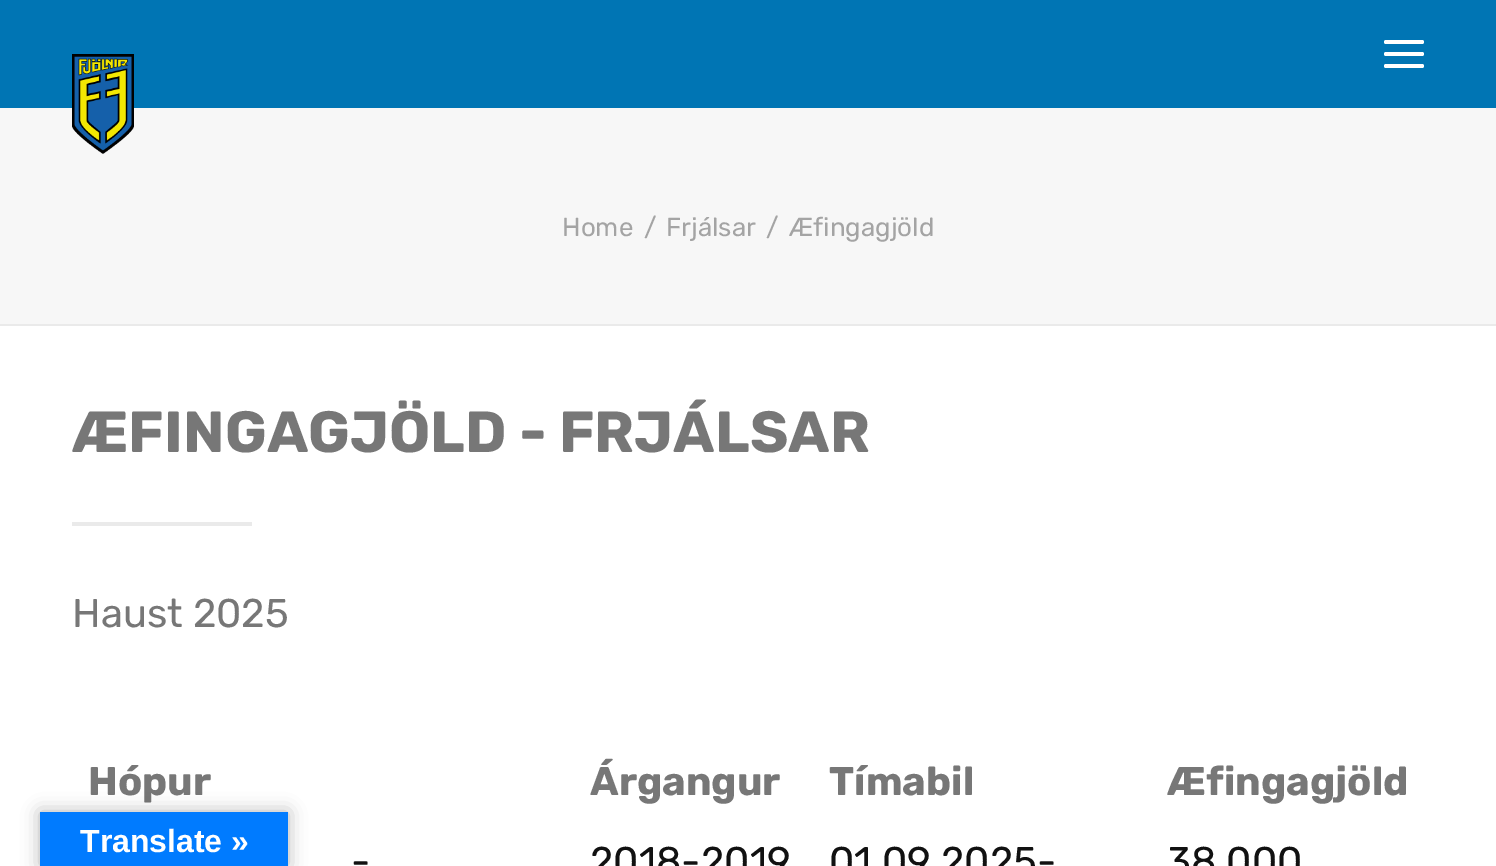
%!PS-Adobe-3.0
%%BoundingBox: 0 0 1496 866
%%LanguageLevel: 3
%%Pages: 1
%%EndComments
%%BeginProlog
/setink { 3 { 255 div 3 1 roll } repeat setrgbcolor } def
/usefont { [ exch dup neg 0 0 3 -1 roll 0 0 ] selectfont } def
/drawtext { setink usefont moveto show } def
/fillbox { setink rectfill } def
/setalpha { dup .setfillconstantalpha .setstrokeconstantalpha } def
/rrect { 5 dict begin { /r /h /w /y /x } { exch def } forall
  x r add y moveto x w add y 2 copy h add r arct x w add y h add x 1 index r arct
  x y h add x y r arct x y 2 copy exch w add exch r arct closepath end } def
/softshadow { 12 dict begin { /a /b /q /h /w /y /x } { exch def } forall gsave /was 0 def
  9 -2 -9 { dup b mul 4 div /e exch def 1 sub .425 mul 2.718 exch exp 1 add a .99 .min exch div /now exch def
    1 1 now sub 1 was sub div sub setalpha /was now def
    w h .min e 2 mul add 0 gt { x e sub y e sub w e 2 mul add h e 2 mul add
      q e add b .6 mul add w h .min 2 div e add .min 0 .max rrect fill } if } for grestore end } def
/drawimage { 5 dict begin { /h /w /y /x /name } { exch def } forall
  gsave x y translate w h scale
  w h 8 [w 0 0 h 0 0] name (r) file false 3 colorimage grestore end } def
%%EndProlog
%%BeginSetup
<< /PageSize [1496 866] /PageUsesTransparency true >> setpagedevice
%%EndSetup
%%Page: 1 1
0 .pushpdf14devicefilter
0 866 translate 1 -1 scale
4 setmiterlimit
0 0 1496 866 255 255 255 fillbox
0 0 1496 108 0 117 180 fillbox
0 108 1496 216 247 247 247 fillbox
(assets/img1.rgb) 72 54 62 100 drawimage
255 255 255 setink
1384 52 40 4 2 rrect fill
1384 40 40 4 2 rrect fill
1384 64 40 4 2 rrect fill
0 324 1496 2 234 234 234 fillbox
(Home) 562 236 /Rubik-Regular 26 164 164 164 drawtext
(/) 644 236 /Rubik-Regular 26 164 164 164 drawtext
(Frjálsar) 666 236 /Rubik-Regular 26 164 164 164 drawtext
(/) 766 236 /Rubik-Regular 26 164 164 164 drawtext
(Æfingagjöld) 789 236 /Rubik-Regular 26 164 164 164 drawtext
(ÆFINGAGJÖLD - FRJÁLSAR) 72 452 /Rubik-Bold 58 119 119 119 drawtext
72 522 180 4 234 234 234 fillbox
(Haust 2025) 72 627 /Rubik-Regular 40 119 119 119 drawtext
(Hópur) 88 795 /Rubik-Bold 40 119 119 119 drawtext
(Árgangur) 590 795 /Rubik-Bold 40 119 119 119 drawtext
(Tímabil) 829 795 /Rubik-Bold 40 119 119 119 drawtext
(Æfingagjöld) 1167 795 /Rubik-Bold 40 119 119 119 drawtext
(-) 351 875 /Rubik-Regular 40 17 17 17 drawtext
(2018-2019) 590 875 /Rubik-Regular 40 17 17 17 drawtext
(01.09.2025-) 829 875 /Rubik-Regular 40 17 17 17 drawtext
(38,000) 1167 875 /Rubik-Regular 40 17 17 17 drawtext
0 0 0 setink
40 812 248 54 0 9 0.3 softshadow
40 812 248 54 0 123 255 fillbox
(Translate ») 80 852 /LiberationSans-Bold 32 255 255 255 drawtext
.poppdf14devicefilter showpage
%%EOF
